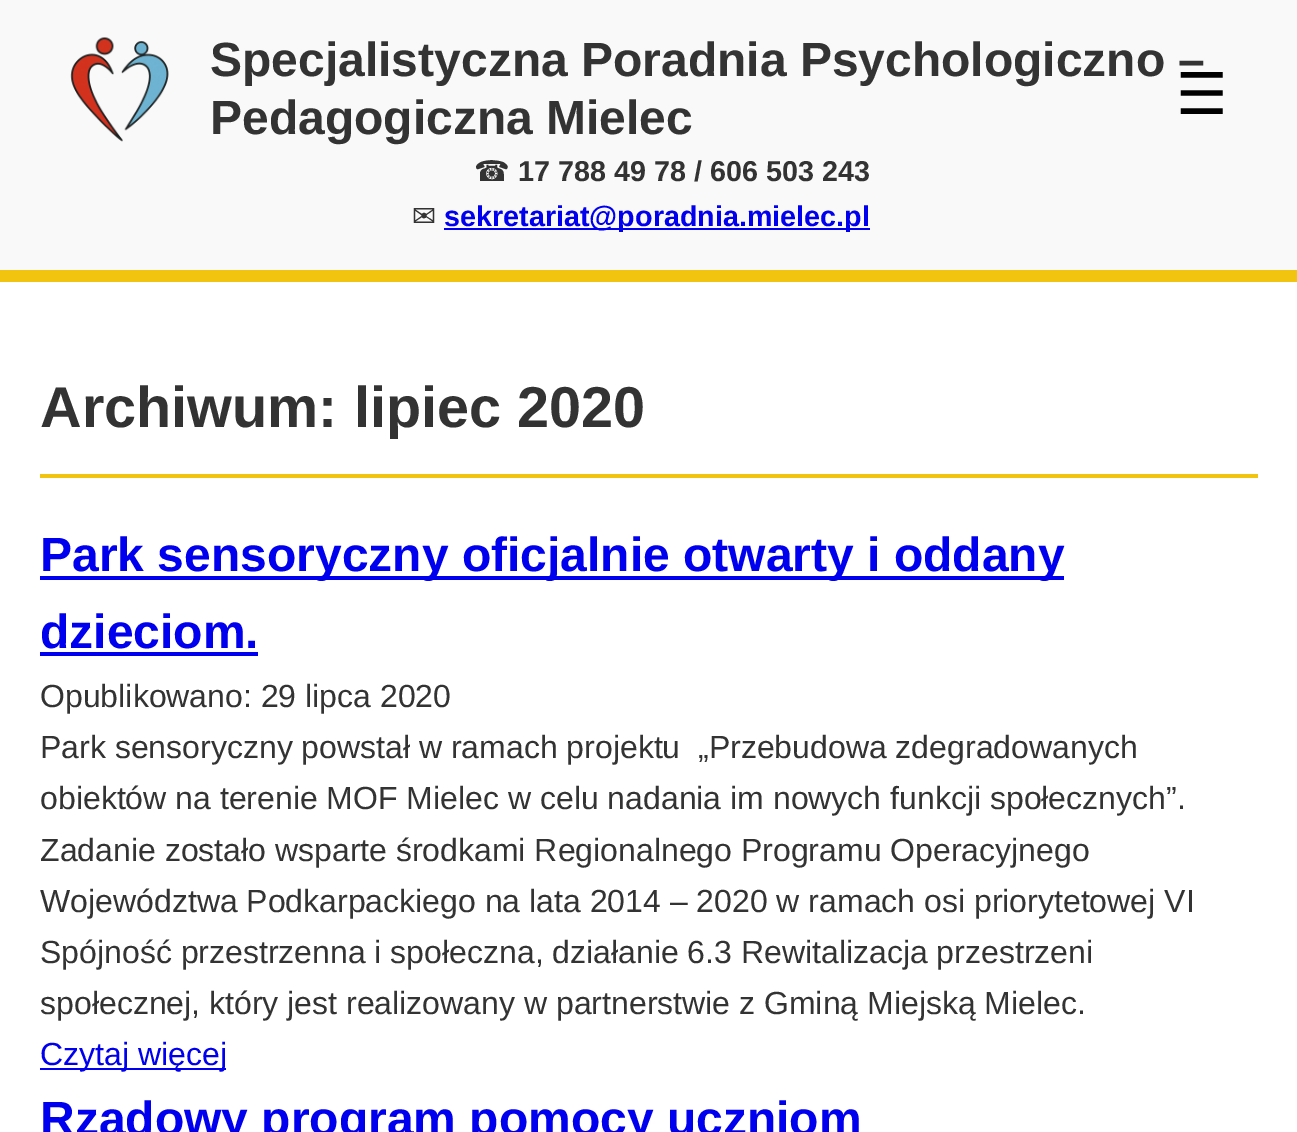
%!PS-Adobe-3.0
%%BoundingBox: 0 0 1297 1132
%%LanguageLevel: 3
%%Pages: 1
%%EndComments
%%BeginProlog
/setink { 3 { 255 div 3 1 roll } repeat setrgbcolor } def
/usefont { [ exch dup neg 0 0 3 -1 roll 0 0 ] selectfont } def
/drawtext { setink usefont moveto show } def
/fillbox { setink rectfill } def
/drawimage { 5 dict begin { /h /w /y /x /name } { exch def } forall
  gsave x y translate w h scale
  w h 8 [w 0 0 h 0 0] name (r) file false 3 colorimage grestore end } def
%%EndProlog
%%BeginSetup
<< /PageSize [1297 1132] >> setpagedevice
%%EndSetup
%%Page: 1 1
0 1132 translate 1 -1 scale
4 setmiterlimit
0 0 1297 1132 255 255 255 fillbox
0 0 1297 270 249 249 249 fillbox
0 270 1297 12 241 196 15 fillbox
(assets/img1.rgb) 70 37 99 105 drawimage
(Specjalistyczna Poradnia Psychologiczno –) 210 76 /LiberationSans-Bold 48 51 51 51 drawtext
(Pedagogiczna Mielec) 210 134 /LiberationSans-Bold 48 51 51 51 drawtext
(☎) 474 181 /DejaVuSans-Regular 28.75 51 51 51 drawtext
(17 788 49 78 / 606 503 243) 518 181 /LiberationSans-Bold 28.75 51 51 51 drawtext
(✉) 412 226 /DejaVuSans-Regular 28.75 51 51 51 drawtext
444 228 426 2 0 0 238 fillbox
(sekretariat@poradnia.mielec.pl) 444 226 /LiberationSans-Bold 28.75 0 0 238 drawtext
(☰) 1176 114 /DejaVuSans-Regular 57.6 0 0 0 drawtext
40 474 1218 4 241 196 15 fillbox
(Archiwum: lipiec 2020) 40 427 /LiberationSans-Bold 57.6 51 51 51 drawtext
40 576 1024 4 0 0 238 fillbox
(Park sensoryczny oficjalnie otwarty i oddany) 40 571 /LiberationSans-Bold 48 0 0 238 drawtext
(dzieciom.) 40 648 /LiberationSans-Bold 48 0 0 238 drawtext
40 652 218 4 0 0 238 fillbox
(Opublikowano: 29 lipca 2020) 40 707 /LiberationSans-Regular 32 51 51 51 drawtext
(Park sensoryczny powstał w ramach projektu  „Przebudowa zdegradowanych) 40 758 /LiberationSans-Regular 32 51 51 51 drawtext
(obiektów na terenie MOF Mielec w celu nadania im nowych funkcji społecznych”.) 40 809 /LiberationSans-Regular 32 51 51 51 drawtext
(Zadanie zostało wsparte środkami Regionalnego Programu Operacyjnego) 40 861 /LiberationSans-Regular 32 51 51 51 drawtext
(Województwa Podkarpackiego na lata 2014 – 2020 w ramach osi priorytetowej VI) 40 912 /LiberationSans-Regular 32 51 51 51 drawtext
(Spójność przestrzenna i społeczna, działanie 6.3 Rewitalizacja przestrzeni) 40 963 /LiberationSans-Regular 32 51 51 51 drawtext
(społecznej, który jest realizowany w partnerstwie z Gminą Miejską Mielec.) 40 1014 /LiberationSans-Regular 32 51 51 51 drawtext
40 1068 186 2 0 0 238 fillbox
(Czytaj więcej) 40 1065 /LiberationSans-Regular 32 0 0 238 drawtext
(Rządowy program pomocy uczniom) 40 1135 /LiberationSans-Bold 48 0 0 238 drawtext
showpage
%%EOF
